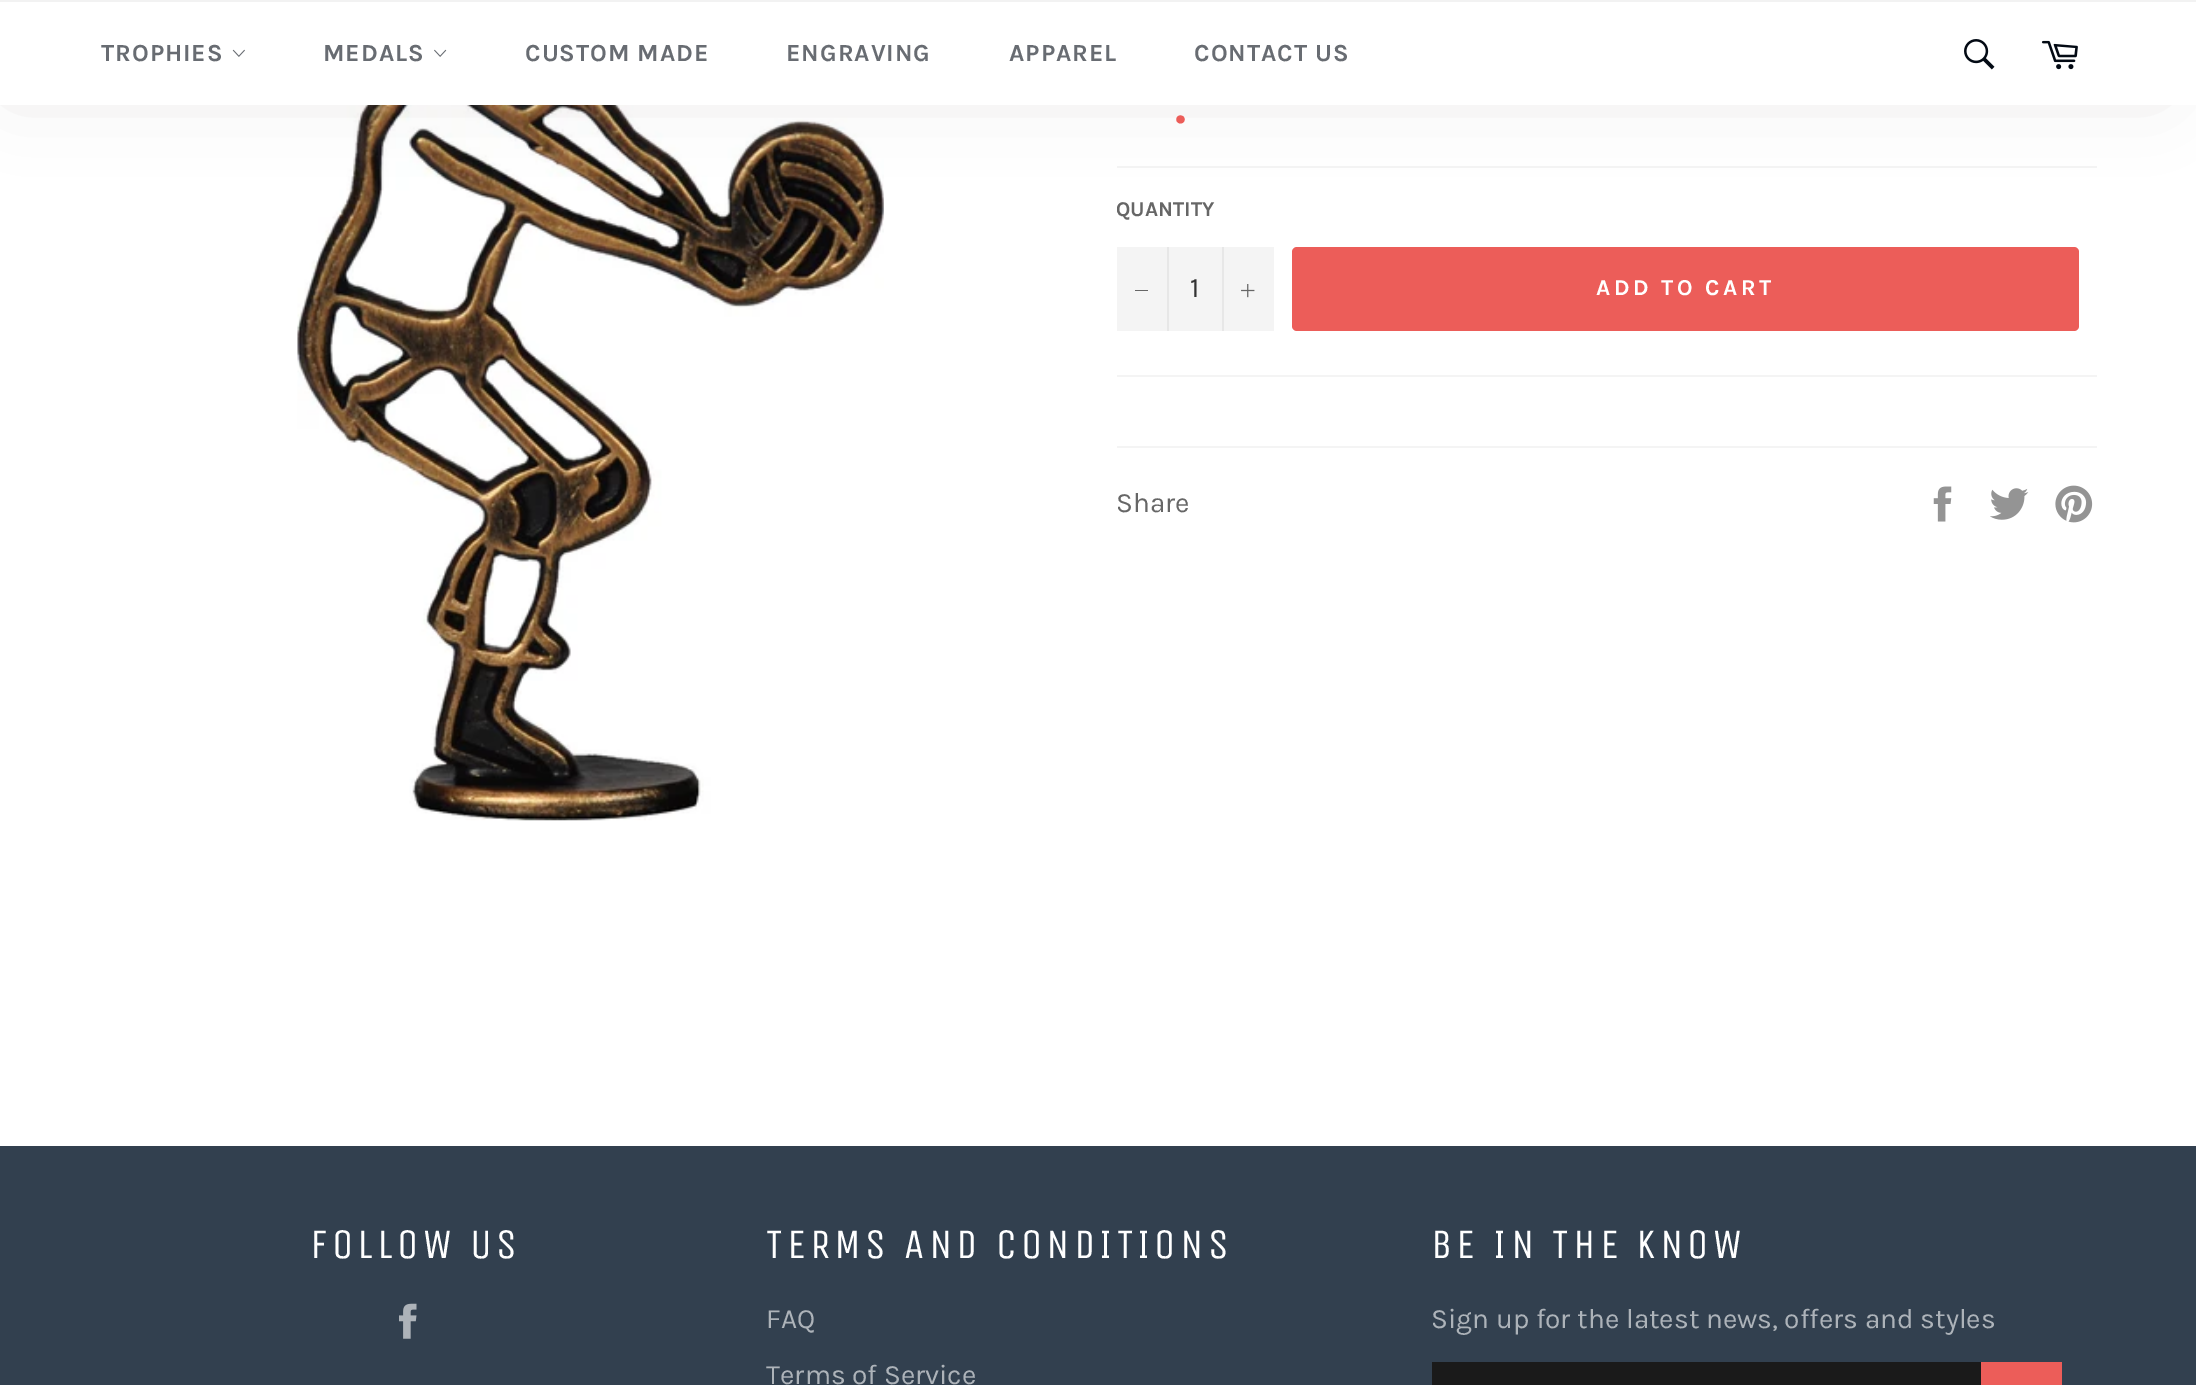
%!PS-Adobe-3.0
%%BoundingBox: 0 0 2196 1385
%%LanguageLevel: 3
%%Pages: 1
%%EndComments
%%BeginProlog
/setink { 3 { 255 div 3 1 roll } repeat setrgbcolor } def
/usefont { [ exch dup neg 0 0 3 -1 roll 0 0 ] selectfont } def
/drawtext { setink usefont moveto show } def
/fillbox { setink rectfill } def
/setalpha { dup .setfillconstantalpha .setstrokeconstantalpha } def
/rrect { 5 dict begin { /r /h /w /y /x } { exch def } forall
  x r add y moveto x w add y 2 copy h add r arct x w add y h add x 1 index r arct
  x y h add x y r arct x y 2 copy exch w add exch r arct closepath end } def
/softshadow { 12 dict begin { /a /b /q /h /w /y /x } { exch def } forall gsave /was 0 def
  9 -2 -9 { dup b mul 4 div /e exch def 1 sub .425 mul 2.718 exch exp 1 add a .99 .min exch div /now exch def
    1 1 now sub 1 was sub div sub setalpha /was now def
    w h .min e 2 mul add 0 gt { x e sub y e sub w e 2 mul add h e 2 mul add
      q e add b .6 mul add w h .min 2 div e add .min 0 .max rrect fill } if } for grestore end } def
/drawimage { 5 dict begin { /h /w /y /x /name } { exch def } forall
  gsave x y translate w h scale
  w h 8 [w 0 0 h 0 0] name (r) file false 3 colorimage grestore end } def
%%EndProlog
%%BeginSetup
<< /PageSize [2196 1385] /PageUsesTransparency true >> setpagedevice
%%EndSetup
%%Page: 1 1
0 .pushpdf14devicefilter
0 1385 translate 1 -1 scale
4 setmiterlimit
0 0 2196 1385 255 255 255 fillbox
(assets/img5.rgb) 297 105 587 716 drawimage
1117 166 980 2 244 244 244 fillbox
111 102 102 setink
11 28 2150 60 0 39.5 0.21 softshadow
0 2 2196 103 255 255 255 fillbox
0 0 2196 2 242 242 242 fillbox
/Karla-Bold 24.5 usefont
104 108 114 setink
101 61 moveto 1 0 (TROPHIES) ashow
(assets/img1.rgb) 232 49 13 8 drawimage
323 61 moveto 1 0 (MEDALS) ashow
(assets/img2.rgb) 434 49 13 8 drawimage
525 61 moveto 1 0 (CUSTOM MADE) ashow
786 61 moveto 1 0 (ENGRAVING) ashow
1009 61 moveto 1 0 (APPAREL) ashow
1194 61 moveto 1 0 (CONTACT US) ashow
(assets/img3.rgb) 1964 39 31 31 drawimage
(assets/img4.rgb) 2041 40 37 30 drawimage
(.) 1175 123 /Karla-Bold 52 236 93 89 drawtext
(QUANTITY) 1116 216 /Karla-Bold 21 102 102 102 drawtext
1117 247 157 84 244 244 244 fillbox
1167 247 2 84 231 231 231 fillbox
1135 290 13 1 102 102 102 fillbox
(1) 1190 297 /Karla-Regular 28 51 51 51 drawtext
1222 247 2 84 231 231 231 fillbox
(assets/img6.rgb) 1241 284 14 14 drawimage
236 93 89 setink
1292 247 787 84 5 rrect fill
/Karla-Bold 22.75 usefont
255 255 255 setink
1596 295 moveto 3.5 0 (ADD TO CART) ashow
1117 375 980 2 244 244 244 fillbox
1117 446 980 2 244 244 244 fillbox
(Share) 1116 512 /Karla-Regular 28 102 102 102 drawtext
(assets/img7.rgb) 1933 486 19 36 drawimage
(assets/img8.rgb) 1990 488 39 32 drawimage
(assets/img9.rgb) 2055 485 38 38 drawimage
0 1146 2196 239 50 64 79 fillbox
/UnicaOne-Regular 42 usefont
255 255 255 setink
310 1258 moveto 4.25 0 (FOLLOW US) ashow
(assets/img10.rgb) 399 1303 18 36 drawimage
766 1258 moveto 4.25 0 (TERMS AND CONDITIONS) ashow
(FAQ) 766 1328 /Karla-Regular 28 173 179 185 drawtext
(Terms of Service) 766 1384 /Karla-Regular 28 173 179 185 drawtext
/UnicaOne-Regular 42 usefont
255 255 255 setink
1431 1258 moveto 4.25 0 (BE IN THE KNOW) ashow
(Sign up for the latest news, offers and styles) 1431 1328 /Karla-Regular 28 173 179 185 drawtext
1432 1362 549 23 26 26 26 fillbox
1981 1362 81 23 236 93 89 fillbox
.poppdf14devicefilter showpage
%%EOF
